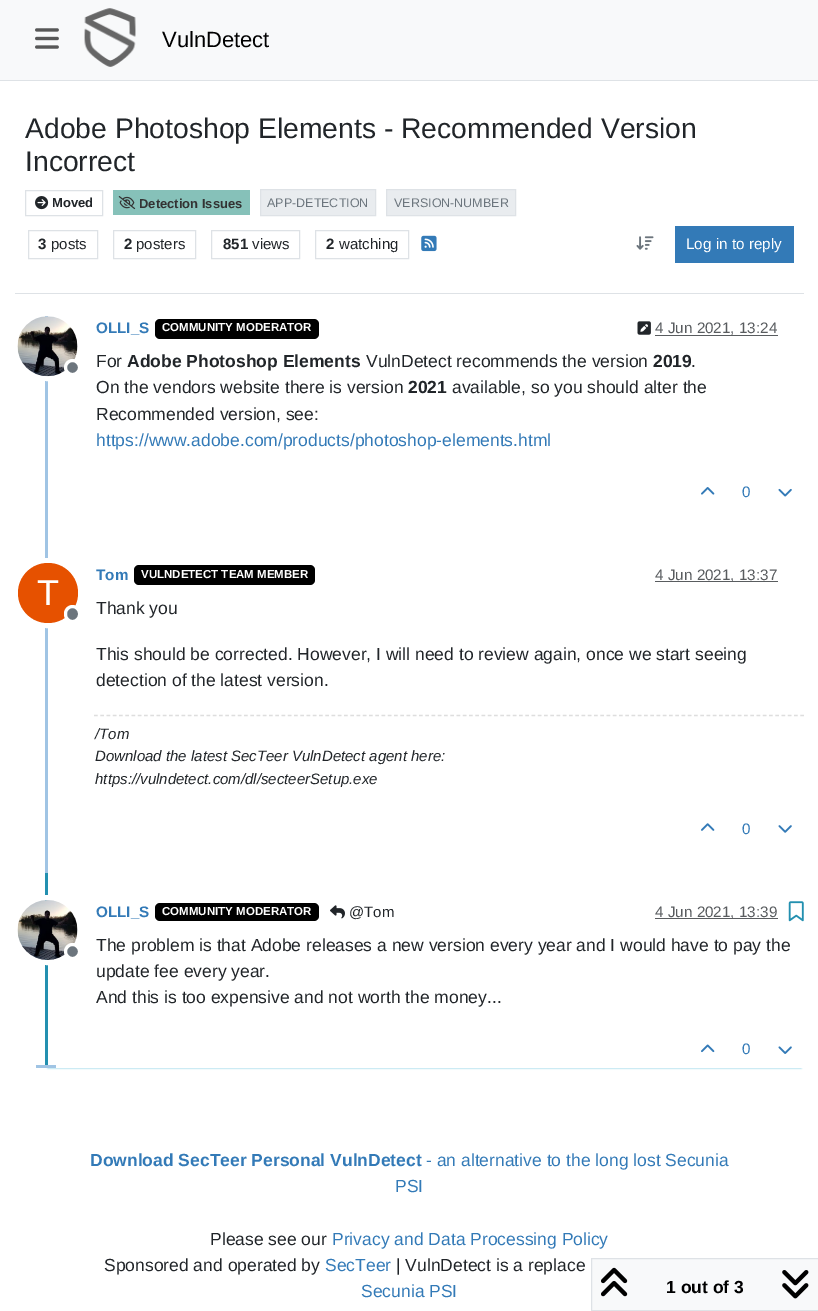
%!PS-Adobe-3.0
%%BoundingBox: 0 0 818 1311
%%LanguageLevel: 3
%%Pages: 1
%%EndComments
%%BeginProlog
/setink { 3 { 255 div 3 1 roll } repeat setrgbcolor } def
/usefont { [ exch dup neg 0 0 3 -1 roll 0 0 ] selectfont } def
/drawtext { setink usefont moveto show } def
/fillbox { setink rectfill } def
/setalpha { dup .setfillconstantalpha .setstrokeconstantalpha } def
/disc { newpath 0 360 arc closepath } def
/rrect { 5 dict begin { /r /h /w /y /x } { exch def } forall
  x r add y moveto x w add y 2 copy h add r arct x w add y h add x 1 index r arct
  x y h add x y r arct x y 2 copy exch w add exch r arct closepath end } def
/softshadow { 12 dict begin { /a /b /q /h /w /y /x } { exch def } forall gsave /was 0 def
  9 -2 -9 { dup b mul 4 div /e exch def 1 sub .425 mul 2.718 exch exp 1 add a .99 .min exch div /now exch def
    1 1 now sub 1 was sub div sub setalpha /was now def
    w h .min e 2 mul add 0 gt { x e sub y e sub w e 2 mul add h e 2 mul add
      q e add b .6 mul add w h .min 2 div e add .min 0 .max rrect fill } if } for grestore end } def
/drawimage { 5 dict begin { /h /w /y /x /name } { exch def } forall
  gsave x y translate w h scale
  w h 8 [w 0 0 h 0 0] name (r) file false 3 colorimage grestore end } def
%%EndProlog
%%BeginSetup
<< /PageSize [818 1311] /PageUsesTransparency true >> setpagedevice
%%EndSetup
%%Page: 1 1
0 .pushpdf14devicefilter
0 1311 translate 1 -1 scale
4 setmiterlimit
0 0 818 1311 255 255 255 fillbox
0 0 818 80 248 249 250 fillbox
0 80 818 1 222 226 230 fillbox
(assets/img1.rgb) 35 28 24 21 drawimage
(assets/img2.rgb) 84 8 52 59 drawimage
(VulnDetect) 162 47 /LiberationSans-Regular 22 0 0 0 drawtext
15 293 789 1 222 226 230 fillbox
(Adobe Photoshop Elements - Recommended Version) 25 138 /LiberationSans-Regular 28.3 33 37 41 drawtext
(Incorrect) 25 171 /LiberationSans-Regular 28.3 33 37 41 drawtext
222 226 230 setink
25.5 190.5 77 25 rectstroke
(assets/img3.rgb) 35 196 14 14 drawimage
(Moved) 52 207 /LiberationSans-Bold 13 33 37 41 drawtext
113 190 137 25 134 193 185 fillbox
(assets/img4.rgb) 118 196 18 14 drawimage
(Detection Issues) 139 208 /LiberationSans-Bold 13 51 51 51 drawtext
233 236 239 setink
260.5 189.5 moveto 375.5 189.5 lineto 375.5 215.5 lineto 260.5 215.5 lineto closepath gsave fill grestore
222 226 230 setink
stroke
(APP-DETECTION) 267 207 /LiberationSans-Regular 12.5 108 117 125 drawtext
233 236 239 setink
386.5 189.5 moveto 515.5 189.5 lineto 515.5 215.5 lineto 386.5 215.5 lineto closepath gsave fill grestore
222 226 230 setink
stroke
(VERSION-NUMBER) 394 207 /LiberationSans-Regular 12.5 108 117 125 drawtext
222 226 230 setink
28.5 230.5 69 28 rectstroke
(3) 38 249 /LiberationSans-Bold 15 33 37 41 drawtext
(posts) 51 249 /LiberationSans-Regular 15 33 37 41 drawtext
222 226 230 setink
113.5 230.5 82 28 rectstroke
(2) 124 249 /LiberationSans-Bold 15 33 37 41 drawtext
(posters) 136 249 /LiberationSans-Regular 15 33 37 41 drawtext
222 226 230 setink
211.5 230.5 88 28 rectstroke
(851) 223 249 /LiberationSans-Bold 15 33 37 41 drawtext
(views) 252 249 /LiberationSans-Regular 15 33 37 41 drawtext
222 226 230 setink
315.5 230.5 93 28 rectstroke
(2) 326 249 /LiberationSans-Bold 15 33 37 41 drawtext
(watching) 339 249 /LiberationSans-Regular 15 33 37 41 drawtext
(assets/img5.rgb) 421 235 16 17 drawimage
(assets/img6.rgb) 636 236 18 14 drawimage
675 226 119 37 51 122 183 fillbox
(Log in to reply) 686 249 /LiberationSans-Regular 15.25 255 255 255 drawtext
45 314 3 559 160 196 228 fillbox
255 255 255 setink
5 setlinewidth
48 346 32.5 disc stroke
(assets/img7.rgb) 17 316 61 61 drawimage
108 117 125 setink
72.5 367.5 7 disc gsave fill grestore
255 255 255 setink
3 setlinewidth
stroke
(OLLI_S) 96 333 /LiberationSans-Bold 15.25 51 122 183 drawtext
0 0 0 setink
155 319 164 20 5 rrect fill
(COMMUNITY MODERATOR) 162 331 /LiberationSans-Bold 11.5 255 255 255 drawtext
(assets/img8.rgb) 637 321 14 14 drawimage
(4 Jun 2021, 13:24) 655 333 /LiberationSans-Regular 15.25 89 92 95 drawtext
655 335 123 1 89 92 95 fillbox
(For) 96 367 /LiberationSans-Regular 17.5 33 37 41 drawtext
(Adobe Photoshop Elements) 127 367 /LiberationSans-Bold 17.5 33 37 41 drawtext
(VulnDetect recommends the version) 366 367 /LiberationSans-Regular 17.5 33 37 41 drawtext
(2019) 653 367 /LiberationSans-Bold 17.5 33 37 41 drawtext
(.) 691 367 /LiberationSans-Regular 17.5 33 37 41 drawtext
(On the vendors website there is version) 96 393 /LiberationSans-Regular 17.5 33 37 41 drawtext
(2021) 408 393 /LiberationSans-Bold 17.5 33 37 41 drawtext
(available, so you should alter the) 452 393 /LiberationSans-Regular 17.5 33 37 41 drawtext
(Recommended version, see:) 96 420 /LiberationSans-Regular 17.5 33 37 41 drawtext
(https://www.adobe.com/products/photoshop-elements.html) 96 446 /LiberationSans-Regular 17.5 51 122 183 drawtext
(assets/img9.rgb) 701 487 14 8 drawimage
(0) 742 497 /LiberationSans-Regular 15.25 51 122 183 drawtext
(assets/img10.rgb) 778 488 14 9 drawimage
(Tom) 96 580 /LiberationSans-Bold 15.25 51 122 183 drawtext
0 0 0 setink
134 565 181 20 5 rrect fill
(VULNDETECT TEAM MEMBER) 141 578 /LiberationSans-Bold 11.5 255 255 255 drawtext
655 581 123 1 89 92 95 fillbox
(4 Jun 2021, 13:37) 655 580 /LiberationSans-Regular 15.25 89 92 95 drawtext
255 255 255 setink
5 setlinewidth
48 593 32.5 disc stroke
230 81 0 setink
48 593 30 disc fill
(T) 37 605 /LiberationSans-Regular 36 255 255 255 drawtext
108 117 125 setink
65.5 606.5 14 15 7 rrect gsave fill grestore
255 255 255 setink
3 setlinewidth
stroke
(Thank you) 96 614 /LiberationSans-Regular 17.5 33 37 41 drawtext
(This should be corrected. However, I will need to review again, once we start seeing) 96 660 /LiberationSans-Regular 17.5 33 37 41 drawtext
(detection of the latest version.) 96 686 /LiberationSans-Regular 17.5 33 37 41 drawtext
222 222 222 setink
1.2 setlinewidth
[3.75 2.5] 0 setdash
94 715.5 moveto 804 715.5 lineto stroke
(/Tom) 95 739 /LiberationSans-Italic 15 33 37 41 drawtext
(Download the latest SecTeer VulnDetect agent here:) 95 761 /LiberationSans-Italic 15 33 37 41 drawtext
(https://vulndetect.com/dl/secteerSetup.exe) 95 784 /LiberationSans-Italic 15 33 37 41 drawtext
(assets/img11.rgb) 701 823 14 8 drawimage
(0) 742 834 /LiberationSans-Regular 15.25 51 122 183 drawtext
(assets/img12.rgb) 778 825 14 8 drawimage
gsave
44 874 moveto 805 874 lineto 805 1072 lineto 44 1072 lineto closepath 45 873 moveto 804 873 lineto 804 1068 lineto 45 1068 lineto closepath eoclip newpath
91 192 222 setink
48 878 753 190 0 1 1 softshadow
grestore
45 873 3 195 35 144 176 fillbox
255 255 255 setink
5 setlinewidth
[] 0 setdash
48 930 32.5 disc stroke
(assets/img13.rgb) 17 900 61 60 drawimage
108 117 125 setink
72.5 951.5 7 disc gsave fill grestore
255 255 255 setink
3 setlinewidth
stroke
(OLLI_S) 96 917 /LiberationSans-Bold 15.25 51 122 183 drawtext
0 0 0 setink
155 903 164 18 5 rrect fill
(COMMUNITY MODERATOR) 162 915 /LiberationSans-Bold 11.5 255 255 255 drawtext
(assets/img14.rgb) 330 905 15 14 drawimage
(@Tom) 349 917 /LiberationSans-Regular 15 33 37 41 drawtext
655 918 123 1 89 92 95 fillbox
(4 Jun 2021, 13:39) 655 917 /LiberationSans-Regular 15.25 89 92 95 drawtext
(assets/img15.rgb) 788 901 16 21 drawimage
(The problem is that Adobe releases a new version every year and I would have to pay the) 96 951 /LiberationSans-Regular 17.5 33 37 41 drawtext
(update fee every year.) 96 977 /LiberationSans-Regular 17.5 33 37 41 drawtext
(And this is too expensive and not worth the money...) 96 1003 /LiberationSans-Regular 17.5 33 37 41 drawtext
(assets/img16.rgb) 701 1044 14 9 drawimage
(0) 742 1054 /LiberationSans-Regular 15.25 51 122 183 drawtext
(assets/img17.rgb) 778 1046 14 8 drawimage
36 1065 20 3 160 196 228 fillbox
248 249 250 setink
591.5 1258.5 moveto 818.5 1258.5 lineto 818.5 1310.5 lineto 591.5 1310.5 lineto closepath gsave fill grestore
222 226 230 setink
1 setlinewidth
stroke
(assets/img18.rgb) 601 1267 27 30 drawimage
(1 out of 3) 666 1293 /LiberationSans-Bold 17.5 0 0 0 drawtext
(assets/img19.rgb) 782 1270 27 29 drawimage
(Download SecTeer Personal VulnDetect) 90 1166 /LiberationSans-Bold 17.5 51 122 183 drawtext
(- an alternative to the long lost Secunia) 426 1166 /LiberationSans-Regular 17.5 51 122 183 drawtext
(PSI) 395 1192 /LiberationSans-Regular 17.5 51 122 183 drawtext
(Please see our) 210 1245 /LiberationSans-Regular 17.5 33 37 41 drawtext
(Privacy and Data Processing Policy) 332 1245 /LiberationSans-Regular 17.5 51 122 183 drawtext
(Sponsored and operated by) 104 1271 /LiberationSans-Regular 17.5 33 37 41 drawtext
(SecTeer) 325 1271 /LiberationSans-Regular 17.5 51 122 183 drawtext
(| VulnDetect is a replace) 396 1271 /LiberationSans-Regular 17.5 33 37 41 drawtext
(Secunia PSI) 361 1297 /LiberationSans-Regular 17.5 51 122 183 drawtext
.poppdf14devicefilter showpage
%%EOF
